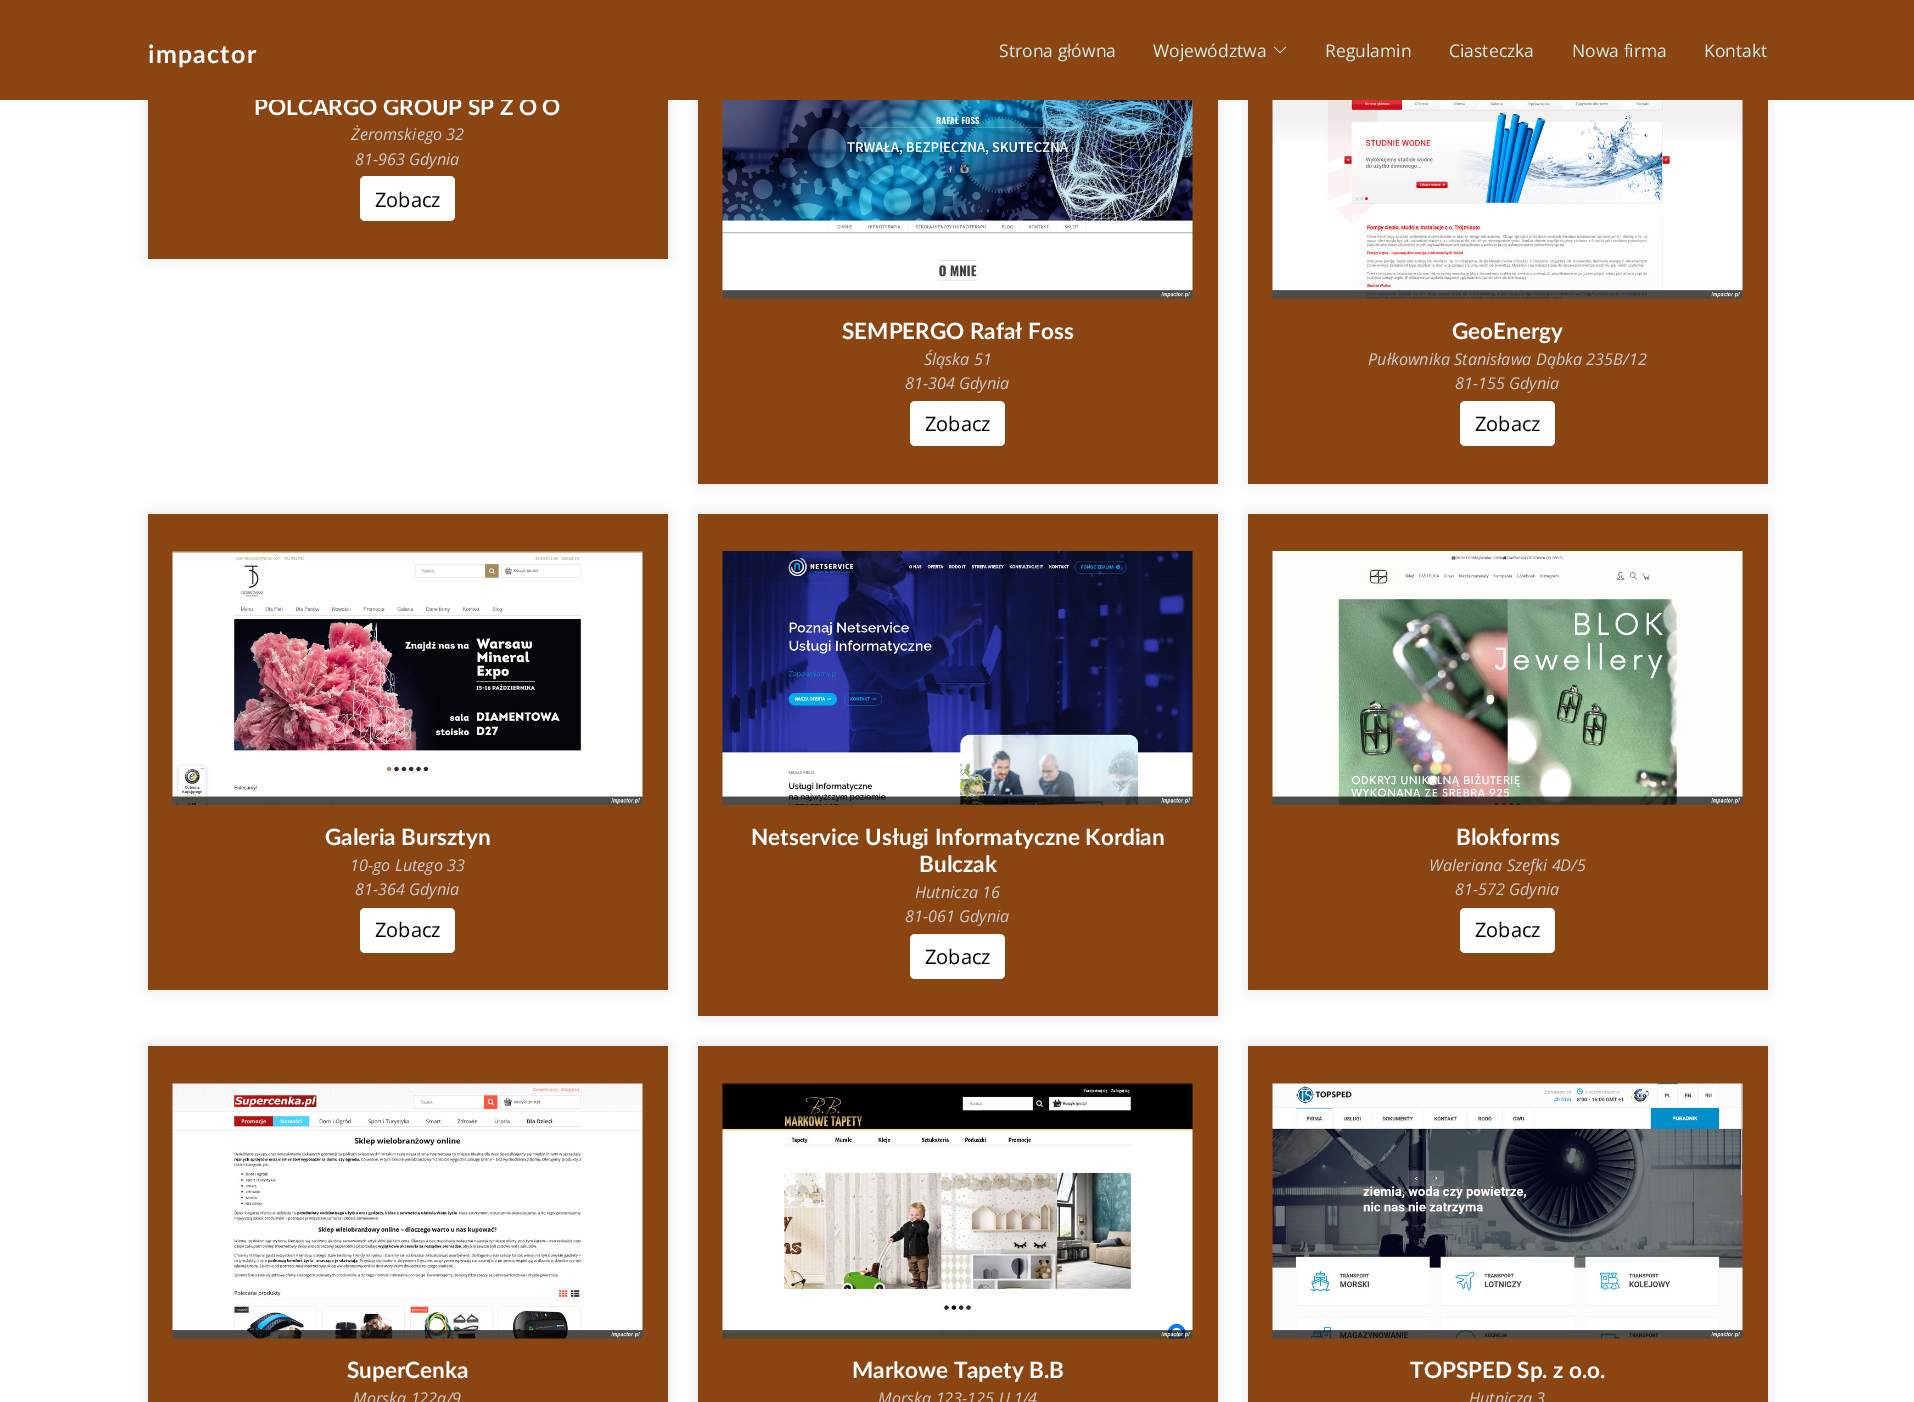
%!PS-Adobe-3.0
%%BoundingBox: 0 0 1914 1402
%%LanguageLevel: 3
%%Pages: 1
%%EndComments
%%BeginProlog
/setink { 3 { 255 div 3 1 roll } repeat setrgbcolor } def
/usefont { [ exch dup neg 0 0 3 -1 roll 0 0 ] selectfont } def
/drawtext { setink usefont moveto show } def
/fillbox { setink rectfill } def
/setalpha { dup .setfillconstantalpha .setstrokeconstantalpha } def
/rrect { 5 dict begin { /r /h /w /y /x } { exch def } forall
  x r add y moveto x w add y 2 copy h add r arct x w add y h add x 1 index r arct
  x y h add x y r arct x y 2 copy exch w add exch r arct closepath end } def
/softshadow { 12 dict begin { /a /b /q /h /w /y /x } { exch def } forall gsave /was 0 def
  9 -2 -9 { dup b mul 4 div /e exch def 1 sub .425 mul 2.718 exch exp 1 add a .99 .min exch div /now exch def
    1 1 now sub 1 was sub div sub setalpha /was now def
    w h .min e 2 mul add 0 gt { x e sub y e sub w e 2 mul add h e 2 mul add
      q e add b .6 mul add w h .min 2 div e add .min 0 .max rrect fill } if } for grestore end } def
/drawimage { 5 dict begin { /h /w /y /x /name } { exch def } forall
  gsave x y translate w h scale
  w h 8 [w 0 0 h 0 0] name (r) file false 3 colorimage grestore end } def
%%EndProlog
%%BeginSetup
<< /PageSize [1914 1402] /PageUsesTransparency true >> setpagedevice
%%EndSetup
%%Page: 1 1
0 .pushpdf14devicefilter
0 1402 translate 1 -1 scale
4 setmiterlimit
0 0 1914 1402 255 255 255 fillbox
0 0 0 setink
148 8 520 251 0 7.5 0.1 softshadow
148 100 520 159 139 69 19 fillbox
(POLCARGO GROUP SP Z O O) 254 115 /Lato-Bold 22.5 255 255 255 drawtext
0 0 0 setink
698 8 520 476 0 7.5 0.1 softshadow
1248 8 520 476 0 7.5 0.1 softshadow
0 0 1914 100 139 69 19 fillbox
/Lato-Bold 25 usefont
255 255 255 setink
148 63 moveto 1.25 0 (impactor) ashow
(Strona główna) 999 57 /OpenSans-Regular 17.5 210 236 233 drawtext
(Województwa) 1153 57 /OpenSans-Regular 17.5 210 236 233 drawtext
(assets/img1.rgb) 1273 46 14 8 drawimage
(Regulamin) 1325 57 /OpenSans-Regular 17.5 210 236 233 drawtext
(Ciasteczka) 1449 57 /OpenSans-Regular 17.5 210 236 233 drawtext
(Nowa firma) 1572 57 /OpenSans-Regular 17.5 210 236 233 drawtext
(Kontakt) 1704 57 /OpenSans-Regular 17.5 210 236 233 drawtext
(Żeromskiego 32) 351 140 /OpenSans-Italic 16.25 204 204 204 drawtext
(81-963 Gdynia) 355 165 /OpenSans-Italic 16.25 204 204 204 drawtext
255 255 255 setink
360 176 95 45 5 rrect fill
(Zobacz) 375 207 /OpenSans-Regular 20 0 0 0 drawtext
698 100 520 384 139 69 19 fillbox
(assets/img2.rgb) 722 100 471 199 drawimage
(SEMPERGO Rafał Foss) 842 339 /Lato-Bold 22.5 255 255 255 drawtext
(Śląska 51) 924 365 /OpenSans-Italic 16.25 204 204 204 drawtext
(81-304 Gdynia) 905 389 /OpenSans-Italic 16.25 204 204 204 drawtext
255 255 255 setink
910 401 95 45 5 rrect fill
(Zobacz) 925 431 /OpenSans-Regular 20 0 0 0 drawtext
1248 100 520 384 139 69 19 fillbox
(assets/img3.rgb) 1272 100 471 199 drawimage
(GeoEnergy) 1452 339 /Lato-Bold 22.5 255 255 255 drawtext
(Pułkownika Stanisława Dąbka 235B/12) 1368 365 /OpenSans-Italic 16.25 204 204 204 drawtext
(81-155 Gdynia) 1455 389 /OpenSans-Italic 16.25 204 204 204 drawtext
255 255 255 setink
1460 401 95 45 5 rrect fill
(Zobacz) 1475 431 /OpenSans-Regular 20 0 0 0 drawtext
148 514 520 476 0 7.5 0.1 softshadow
148 514 520 476 139 69 19 fillbox
(assets/img4.rgb) 172 551 471 254 drawimage
(Galeria Bursztyn) 325 845 /Lato-Bold 22.5 255 255 255 drawtext
(10-go Lutego 33) 350 871 /OpenSans-Italic 16.25 204 204 204 drawtext
(81-364 Gdynia) 355 895 /OpenSans-Italic 16.25 204 204 204 drawtext
255 255 255 setink
360 908 95 45 5 rrect fill
(Zobacz) 375 937 /OpenSans-Regular 20 0 0 0 drawtext
698 514 520 502 0 7.5 0.1 softshadow
698 514 520 502 139 69 19 fillbox
(assets/img5.rgb) 722 551 471 254 drawimage
(Netservice Usługi Informatyczne Kordian) 751 845 /Lato-Bold 22.5 255 255 255 drawtext
(Bulczak) 919 872 /Lato-Bold 22.5 255 255 255 drawtext
(Hutnicza 16) 915 898 /OpenSans-Italic 16.25 204 204 204 drawtext
(81-061 Gdynia) 905 922 /OpenSans-Italic 16.25 204 204 204 drawtext
255 255 255 setink
910 934 95 45 5 rrect fill
(Zobacz) 925 964 /OpenSans-Regular 20 0 0 0 drawtext
1248 514 520 476 0 7.5 0.1 softshadow
1248 514 520 476 139 69 19 fillbox
(assets/img6.rgb) 1272 551 471 254 drawimage
(Blokforms) 1456 845 /Lato-Bold 22.5 255 255 255 drawtext
(Waleriana Szefki 4D/5) 1429 871 /OpenSans-Italic 16.25 204 204 204 drawtext
(81-572 Gdynia) 1455 895 /OpenSans-Italic 16.25 204 204 204 drawtext
255 255 255 setink
1460 908 95 45 5 rrect fill
(Zobacz) 1475 937 /OpenSans-Regular 20 0 0 0 drawtext
148 1046 520 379 0 7.5 0.1 softshadow
148 1046 520 356 139 69 19 fillbox
(assets/img7.rgb) 172 1083 471 256 drawimage
(SuperCenka) 347 1378 /Lato-Bold 22.5 255 255 255 drawtext
(Morska 122a/9) 353 1404 /OpenSans-Italic 16.25 204 204 204 drawtext
0 0 0 setink
698 1046 520 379 0 7.5 0.1 softshadow
698 1046 520 356 139 69 19 fillbox
(assets/img8.rgb) 722 1083 471 256 drawimage
(Markowe Tapety B.B) 852 1378 /Lato-Bold 22.5 255 255 255 drawtext
(Morska 123-125 U 1/4) 878 1404 /OpenSans-Italic 16.25 204 204 204 drawtext
0 0 0 setink
1248 1046 520 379 0 7.5 0.1 softshadow
1248 1046 520 356 139 69 19 fillbox
(assets/img9.rgb) 1272 1083 471 256 drawimage
(TOPSPED Sp. z o.o.) 1410 1378 /Lato-Bold 22.5 255 255 255 drawtext
(Hutnicza 3) 1469 1404 /OpenSans-Italic 16.25 204 204 204 drawtext
.poppdf14devicefilter showpage
%%EOF
